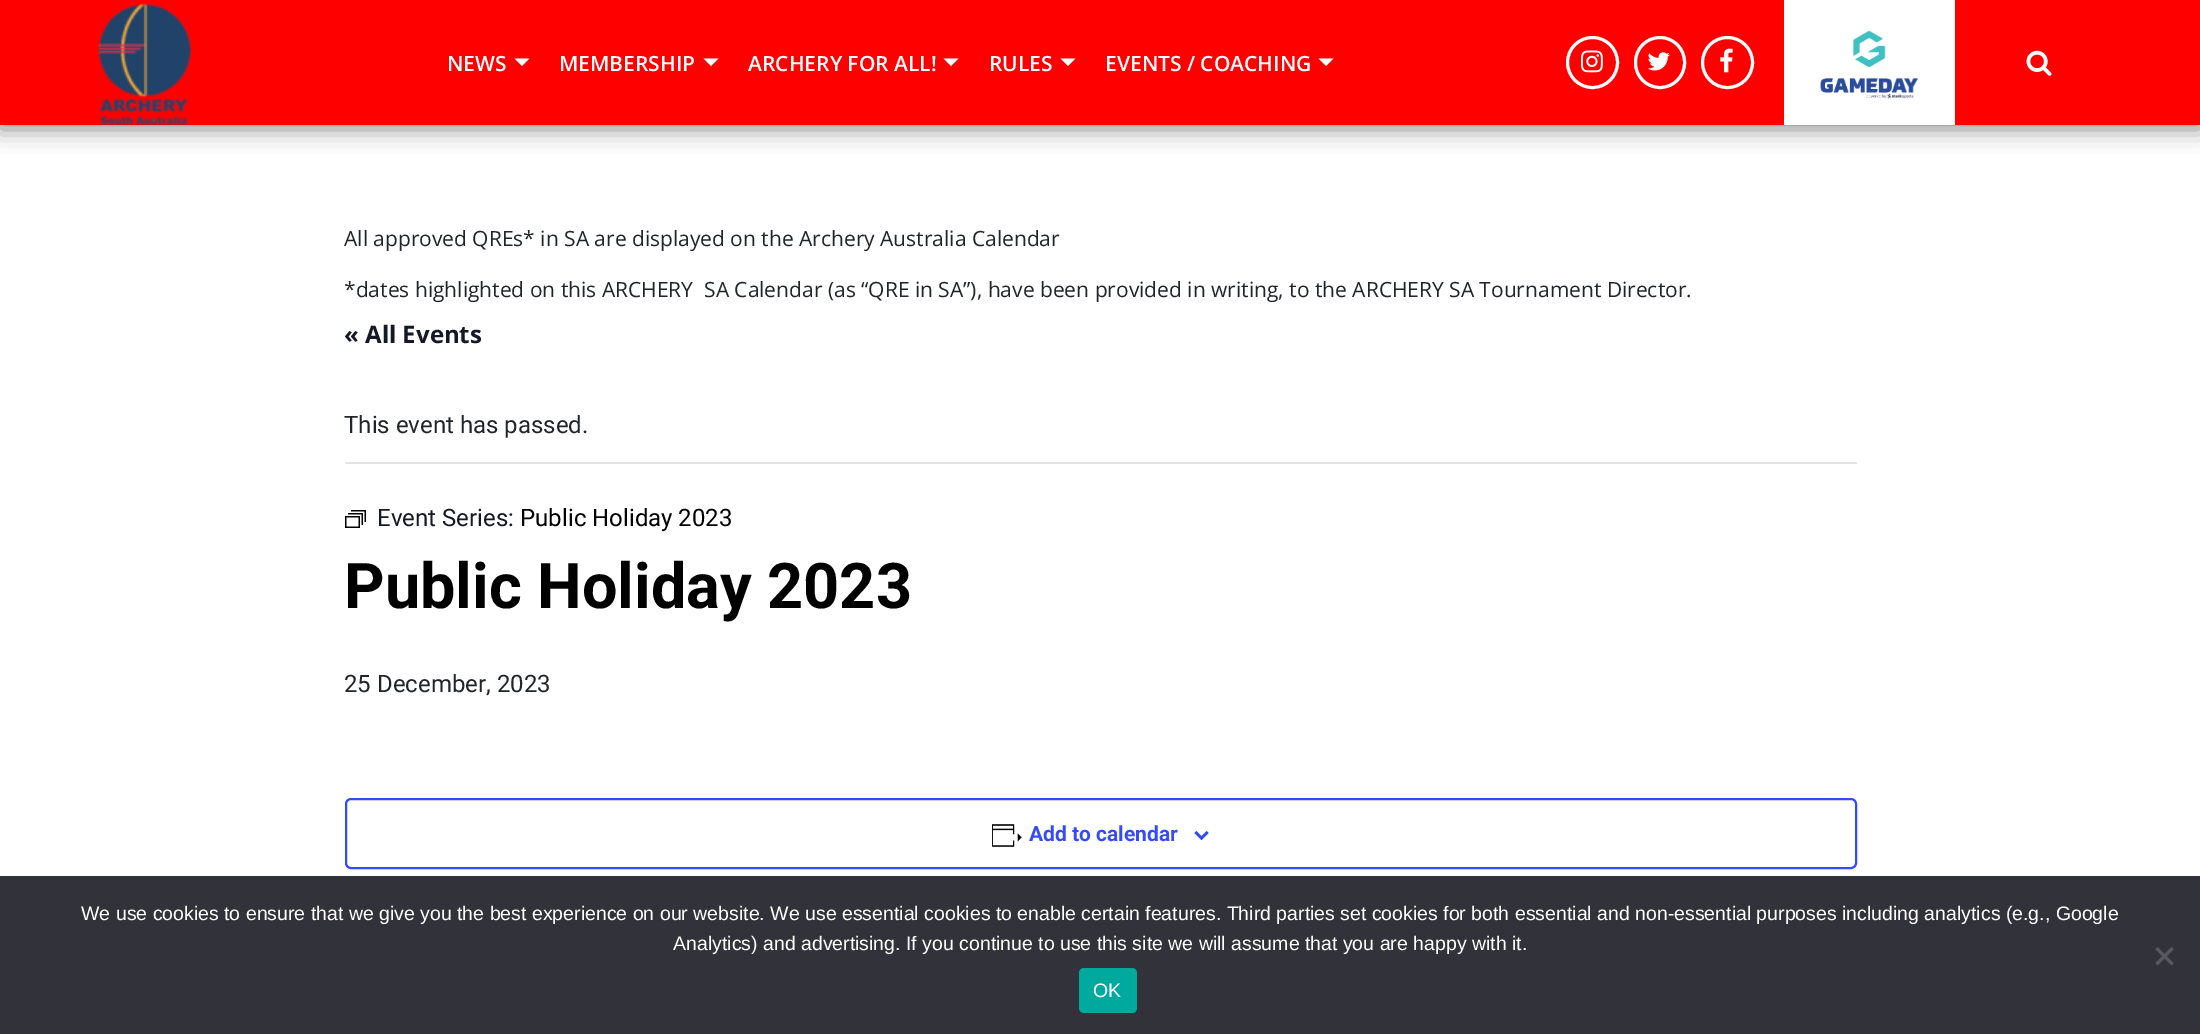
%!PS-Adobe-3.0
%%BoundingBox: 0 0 2200 1034
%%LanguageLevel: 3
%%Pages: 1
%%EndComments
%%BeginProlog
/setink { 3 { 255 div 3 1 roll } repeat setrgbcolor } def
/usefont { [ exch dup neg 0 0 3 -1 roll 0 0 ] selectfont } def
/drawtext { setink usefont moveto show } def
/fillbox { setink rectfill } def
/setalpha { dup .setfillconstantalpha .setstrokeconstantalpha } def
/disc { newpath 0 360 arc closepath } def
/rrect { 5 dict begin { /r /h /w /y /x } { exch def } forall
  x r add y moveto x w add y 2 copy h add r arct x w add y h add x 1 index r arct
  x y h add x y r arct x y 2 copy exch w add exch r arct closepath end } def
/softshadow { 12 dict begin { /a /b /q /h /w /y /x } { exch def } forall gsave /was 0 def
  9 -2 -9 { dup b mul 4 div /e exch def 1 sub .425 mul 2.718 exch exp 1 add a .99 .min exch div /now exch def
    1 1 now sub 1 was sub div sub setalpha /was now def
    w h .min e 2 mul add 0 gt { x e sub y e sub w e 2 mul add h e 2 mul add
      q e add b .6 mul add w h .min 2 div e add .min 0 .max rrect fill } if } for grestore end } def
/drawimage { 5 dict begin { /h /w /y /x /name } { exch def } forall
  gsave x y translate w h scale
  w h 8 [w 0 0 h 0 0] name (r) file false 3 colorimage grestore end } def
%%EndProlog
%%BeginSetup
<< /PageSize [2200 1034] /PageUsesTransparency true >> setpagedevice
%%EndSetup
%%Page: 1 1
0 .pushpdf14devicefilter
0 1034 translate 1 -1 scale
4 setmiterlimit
0 0 2200 1034 255 255 255 fillbox
51 51 51 setink
0 5 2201 124 0 11 0.6 softshadow
0 0 2200 125 255 0 0 fillbox
(assets/img1.rgb) 98 3 93 122 drawimage
(NEWS) 447 71 /OpenSans-SemiBold 21 255 255 255 drawtext
514.5 58.5 moveto 529.5 58.5 lineto 522 66 lineto closepath fill
(MEMBERSHIP) 559 71 /OpenSans-SemiBold 21 255 255 255 drawtext
703.5 58.5 moveto 718.5 58.5 lineto 711 66 lineto closepath fill
(ARCHERY FOR ALL!) 748 71 /OpenSans-SemiBold 21 255 255 255 drawtext
943.5 58.5 moveto 958.5 58.5 lineto 951 66 lineto closepath fill
(RULES) 989 71 /OpenSans-SemiBold 21 255 255 255 drawtext
1060.5 58.5 moveto 1075.5 58.5 lineto 1068 66 lineto closepath fill
(EVENTS / COACHING) 1105 71 /OpenSans-SemiBold 21 255 255 255 drawtext
1318.5 58.5 moveto 1333.5 58.5 lineto 1326 66 lineto closepath fill
3 setlinewidth
1592.5 62.5 25 disc stroke
(assets/img2.rgb) 1581 50 22 23 drawimage
1635.5 37.5 49 50 24.5 rrect stroke
(assets/img3.rgb) 1647 52 23 19 drawimage
1727.5 62.5 25 disc stroke
(assets/img4.rgb) 1720 48 13 25 drawimage
1784 0 171 125 255 255 255 fillbox
(assets/img5.rgb) 1820 30 99 69 drawimage
(assets/img6.rgb) 2026 50 26 26 drawimage
(All approved QREs* in SA are displayed on the Archery Australia Calendar) 344 246 /OpenSans-Regular 21 33 37 41 drawtext
(*dates highlighted on this ARCHERY  SA Calendar \(as “QRE in SA”\), have been provided in writing, to the ARCHERY SA Tournament Director.) 344 297 /OpenSans-Regular 21 33 37 41 drawtext
(« All Events) 344 343 /OpenSans-Bold 24 20 24 39 drawtext
345 462 1512 2 228 228 228 fillbox
(This event has passed.) 344 433 /Roboto-Regular 24 33 37 41 drawtext
(assets/img7.rgb) 345 510 21 18 drawimage
(Event Series:) 377 526 /Roboto-Regular 24 20 24 39 drawtext
(Public Holiday 2023) 520 526 /Roboto-Regular 24 0 0 0 drawtext
(Public Holiday 2023) 344 608 /Roboto-Bold 63 0 0 0 drawtext
(25 December, 2023) 344 692 /Roboto-Regular 24 33 37 41 drawtext
51 74 255 setink
2 setlinewidth
346 799 1510 69 5 rrect stroke
(assets/img8.rgb) 992 824 30 23 drawimage
(Add to calendar) 1029 841 /Roboto-Bold 21 51 74 255 drawtext
(assets/img9.rgb) 1194 831 15 9 drawimage
0 876 2200 158 50 50 58 fillbox
(We use cookies to ensure that we give you the best experience on our website. We use essential cookies to enable certain features. Third parties set cookies for both essential and non-essential purposes including analytics \(e.g., Google) 81 920 /LiberationSans-Regular 19.5 255 255 255 drawtext
(Analytics\) and advertising. If you continue to use this site we will assume that you are happy with it.) 673 950 /LiberationSans-Regular 19.5 255 255 255 drawtext
89 89 93 setink
2171.5 947 moveto 2173.5 949.5 lineto 2157.5 965.5 lineto 2155.5 963 lineto closepath fill
2155.5 949.5 moveto 2157.5 947 lineto 2173.5 963 lineto 2171.5 965.5 lineto closepath fill
0 169 157 setink
1079 968 58 45 5 rrect fill
(OK) 1093 997 /LiberationSans-Regular 19.5 255 255 255 drawtext
.poppdf14devicefilter showpage
%%EOF
